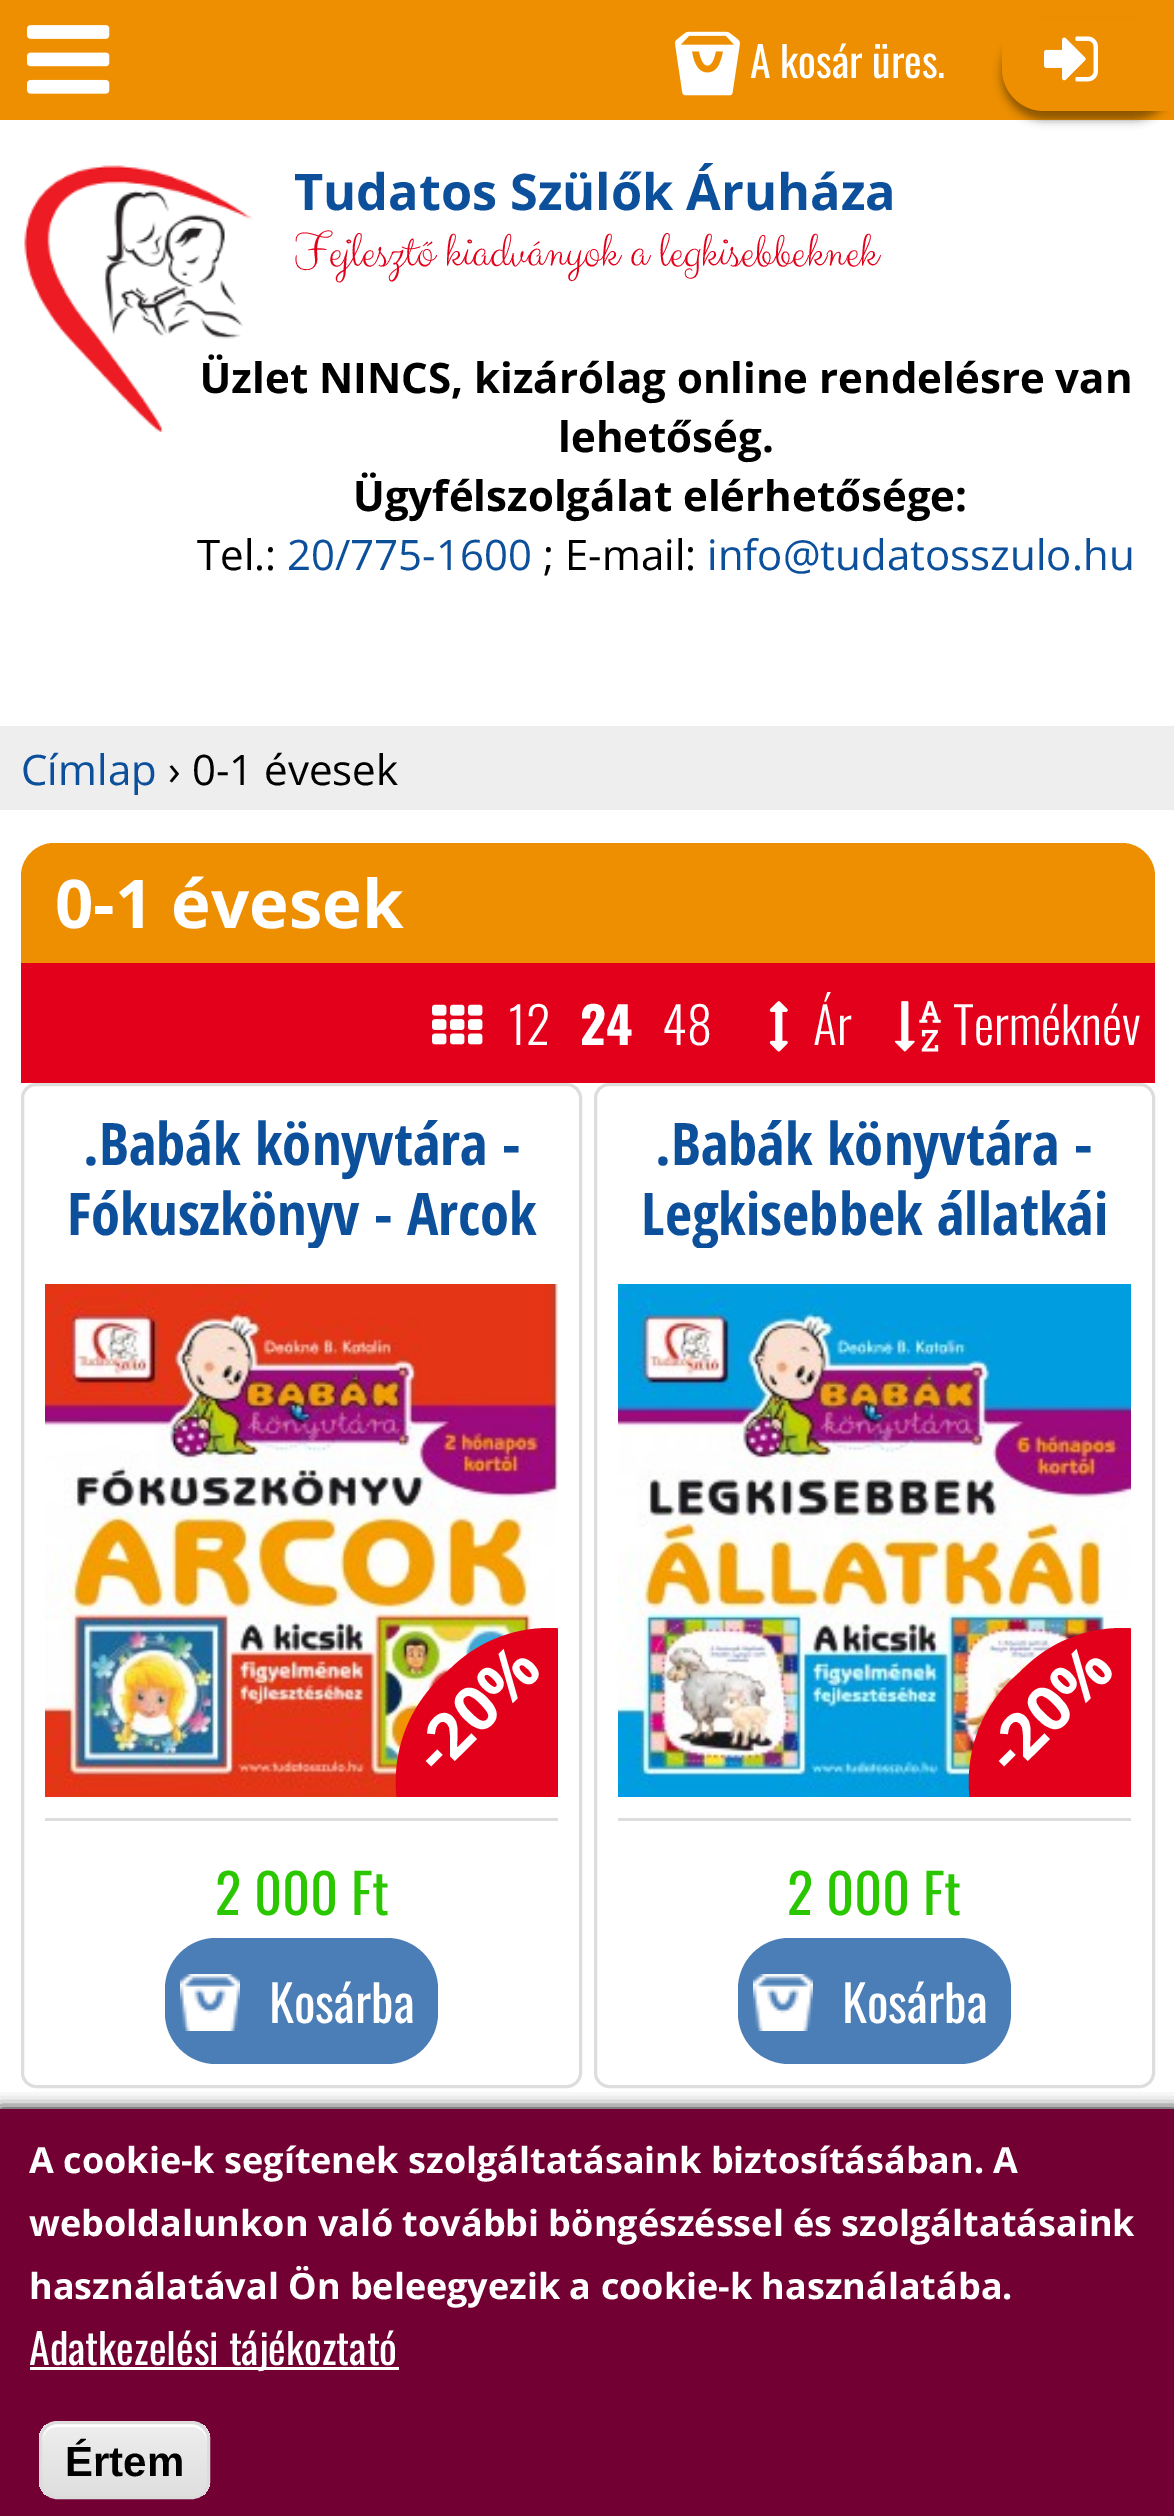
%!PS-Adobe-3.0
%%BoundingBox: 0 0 1174 2516
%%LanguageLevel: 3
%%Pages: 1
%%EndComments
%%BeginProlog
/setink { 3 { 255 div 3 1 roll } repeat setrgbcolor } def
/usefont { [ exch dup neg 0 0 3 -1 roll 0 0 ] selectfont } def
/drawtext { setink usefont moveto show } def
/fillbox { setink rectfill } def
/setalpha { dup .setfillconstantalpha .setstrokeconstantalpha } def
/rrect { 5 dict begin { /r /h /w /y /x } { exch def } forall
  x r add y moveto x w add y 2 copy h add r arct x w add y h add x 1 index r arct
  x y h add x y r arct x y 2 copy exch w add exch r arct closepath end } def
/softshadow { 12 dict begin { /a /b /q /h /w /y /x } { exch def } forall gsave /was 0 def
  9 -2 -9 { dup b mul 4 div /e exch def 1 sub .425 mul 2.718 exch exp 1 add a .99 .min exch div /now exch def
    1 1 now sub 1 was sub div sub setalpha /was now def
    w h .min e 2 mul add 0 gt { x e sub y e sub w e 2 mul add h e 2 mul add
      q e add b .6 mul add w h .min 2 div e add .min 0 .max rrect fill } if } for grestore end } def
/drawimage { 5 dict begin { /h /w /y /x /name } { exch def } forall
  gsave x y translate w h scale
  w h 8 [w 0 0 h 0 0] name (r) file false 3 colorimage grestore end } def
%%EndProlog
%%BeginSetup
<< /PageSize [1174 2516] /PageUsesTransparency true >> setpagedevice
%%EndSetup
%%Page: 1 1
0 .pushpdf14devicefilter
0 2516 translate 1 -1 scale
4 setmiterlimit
0 0 1174 2516 255 255 255 fillbox
0 0 1174 120 237 143 0 fillbox
0 0 0 setink
1002 27 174 93 42 4.5 0.4 softshadow
237 143 0 setink
1002 18 moveto 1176 18 lineto 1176 111 lineto 1044 111 lineto 1021 111 1002 92 1002 69 curveto closepath fill
(assets/img1.rgb) 1044 36 54 46 drawimage
(assets/img2.rgb) 27 25 83 69 drawimage
(assets/img3.rgb) 675 31 65 65 drawimage
(A kosár üres.) 750 78 /Oswald-Regular 42 255 255 255 drawtext
0 726 1174 84 238 238 238 fillbox
(Címlap) 21 785 /OpenSans-Regular 42 12 79 155 drawtext
(› 0-1 évesek) 168 785 /OpenSans-Regular 42 0 0 0 drawtext
237 143 0 setink
54 843 moveto 1122 843 lineto 1140 843 1155 858 1155 876 curveto 1155 963 lineto 21 963 lineto 21 876 lineto 21 858 36 843 54 843 curveto closepath fill
(0-1 évesek) 55 928 /OpenSans-Bold 67.25 255 255 255 drawtext
21 963 1134 120 227 0 27 fillbox
(assets/img4.rgb) 432 1004 51 41 drawimage
(12) 508 1045 /Oswald-Light 50.4 255 255 255 drawtext
(24) 580 1045 /Oswald-Bold 50.4 255 255 255 drawtext
(48) 662 1045 /Oswald-Light 50.4 255 255 255 drawtext
(assets/img5.rgb) 769 1001 19 51 drawimage
(Ár) 813 1045 /Oswald-Light 50.4 255 255 255 drawtext
(assets/img6.rgb) 894 1001 47 51 drawimage
(Terméknév) 953 1045 /Oswald-Light 50.4 255 255 255 drawtext
221 221 221 setink
3 setlinewidth
22.5 1084.5 558 1002 13.5 rrect stroke
(.Babák könyvtára -) 83 1165 /OpenSansCondensed-Bold 58.75 12 79 155 drawtext
gsave
45 1107 513 141 rectclip
(Fókuszkönyv - Arcok) 67 1235 /OpenSansCondensed-Bold 58.75 12 79 155 drawtext
grestore
(assets/img7.rgb) 45 1284 513 513 drawimage
gsave
45 1284 513 513 rectclip
227 0 27 setink
437 1681 moveto 449 1670 lineto 504 1614 594 1614 649 1670 curveto 705 1725 705 1815 649 1870 curveto 638 1882 lineto 582 1937 493 1937 437 1882 curveto 382 1827 382 1737 437 1681 curveto closepath fill
grestore
/OpenSans-Bold 63 usefont
255 255 255 setink
gsave 439 1777 translate -45 rotate 0 0 moveto (-20%) show grestore
45 1818 513 3 221 221 221 fillbox
(2 000 Ft) 215 1915 /Oswald-Regular 54.5 42 199 0 drawtext
75 126 182 setink
165 1938 273 126 51 rrect fill
(assets/img8.rgb) 180 1974 60 57 drawimage
(Kosárba) 269 2023 /Oswald-Regular 50.4 255 255 255 drawtext
221 221 221 setink
595.5 1084.5 558 1002 13.5 rrect stroke
(.Babák könyvtára -) 655 1165 /OpenSansCondensed-Bold 58.75 12 79 155 drawtext
gsave
618 1107 513 141 rectclip
(Legkisebbek állatkái) 641 1235 /OpenSansCondensed-Bold 58.75 12 79 155 drawtext
grestore
(assets/img9.rgb) 618 1284 513 513 drawimage
gsave
618 1284 513 513 rectclip
227 0 27 setink
1010 1681 moveto 1022 1670 lineto 1077 1614 1167 1614 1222 1670 curveto 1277 1725 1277 1815 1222 1870 curveto 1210 1882 lineto 1155 1937 1065 1937 1010 1882 curveto 955 1827 955 1737 1010 1681 curveto closepath fill
grestore
/OpenSans-Bold 63 usefont
255 255 255 setink
gsave 1012 1777 translate -45 rotate 0 0 moveto (-20%) show grestore
618 1818 513 3 221 221 221 fillbox
(2 000 Ft) 787 1915 /Oswald-Regular 54.5 42 199 0 drawtext
75 126 182 setink
738 1938 273 126 51 rrect fill
(assets/img10.rgb) 753 1974 60 57 drawimage
(Kosárba) 842 2023 /Oswald-Regular 50.4 255 255 255 drawtext
(Üzlet NINCS, kizárólag online rendelésre van) 200 393 /OpenSans-Bold 42 0 0 0 drawtext
(assets/img11.rgb) 24 165 229 267 drawimage
(Tudatos Szülők Áruháza) 294 210 /OpenSans-Bold 50.4 12 79 155 drawtext
(Fejlesztő kiadványok a legkisebbeknek) 294 267 /ClickerScript-Regular 50.4 227 0 27 drawtext
(lehetőség.) 558 452 /OpenSans-Bold 42 0 0 0 drawtext
(Ügyfélszolgálat elérhetősége:) 353 511 /OpenSans-Bold 42 0 0 0 drawtext
(Tel.:) 197 570 /OpenSans-Regular 42 0 0 0 drawtext
(20/775-1600) 287 570 /OpenSans-Regular 42 12 79 155 drawtext
(; E-mail:) 543 570 /OpenSans-Regular 42 0 0 0 drawtext
(info@tudatosszulo.hu) 707 570 /OpenSans-Regular 42 12 79 155 drawtext
0 0 0 setink
0 2109 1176 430 0 7.5 1 softshadow
0 2109 1174 407 115 0 51 fillbox
(A cookie-k segítenek szolgáltatásaink biztosításában. A) 29 2173 /OpenSans-Bold 36 255 255 255 drawtext
(weboldalunkon való további böngészéssel és szolgáltatásaink) 29 2236 /OpenSans-Bold 36 255 255 255 drawtext
(használatával Ön beleegyezik a cookie-k használatába.) 29 2299 /OpenSans-Bold 36 255 255 255 drawtext
30 2367 369 3 255 255 255 fillbox
(Adatkezelési tájékoztató) 29 2365 /Oswald-Regular 42 255 255 255 drawtext
gsave
39 2421 171 78 18 rrect clip newpath
gsave 39 2424 moveto 210 2424 lineto 210 2496 lineto 39 2496 lineto closepath clip newpath
<< /ShadingType 2 /ColorSpace /DeviceRGB /Coords [125 2424 125 2496] /Extend [true true] /Function << /FunctionType 3 /Domain [0 1] /Functions [<< /FunctionType 2 /Domain [0 1] /C0 [0.929 0.929 0.929] /C1 [0.929 0.929 0.929] /N 1 >> << /FunctionType 2 /Domain [0 1] /C0 [0.929 0.929 0.929] /C1 [0.875 0.875 0.875] /N 1 >>] /Bounds [0.05] /Encode [0 1 0 1] >> >> shfill grestore
grestore
57 2427 moveto 192 2427 lineto 200 2427 207 2434 207 2442 curveto 207 2419 187 2424 170 2424 curveto 80 2424 lineto 62 2424 42 2419 42 2442 curveto 42 2434 49 2427 57 2427 curveto closepath fill
220 220 220 setink
40.5 2422.5 168 75 16.5 rrect stroke
(Értem) 65 2476 /LiberationSans-Bold 42 0 0 0 drawtext
.poppdf14devicefilter showpage
%%EOF
